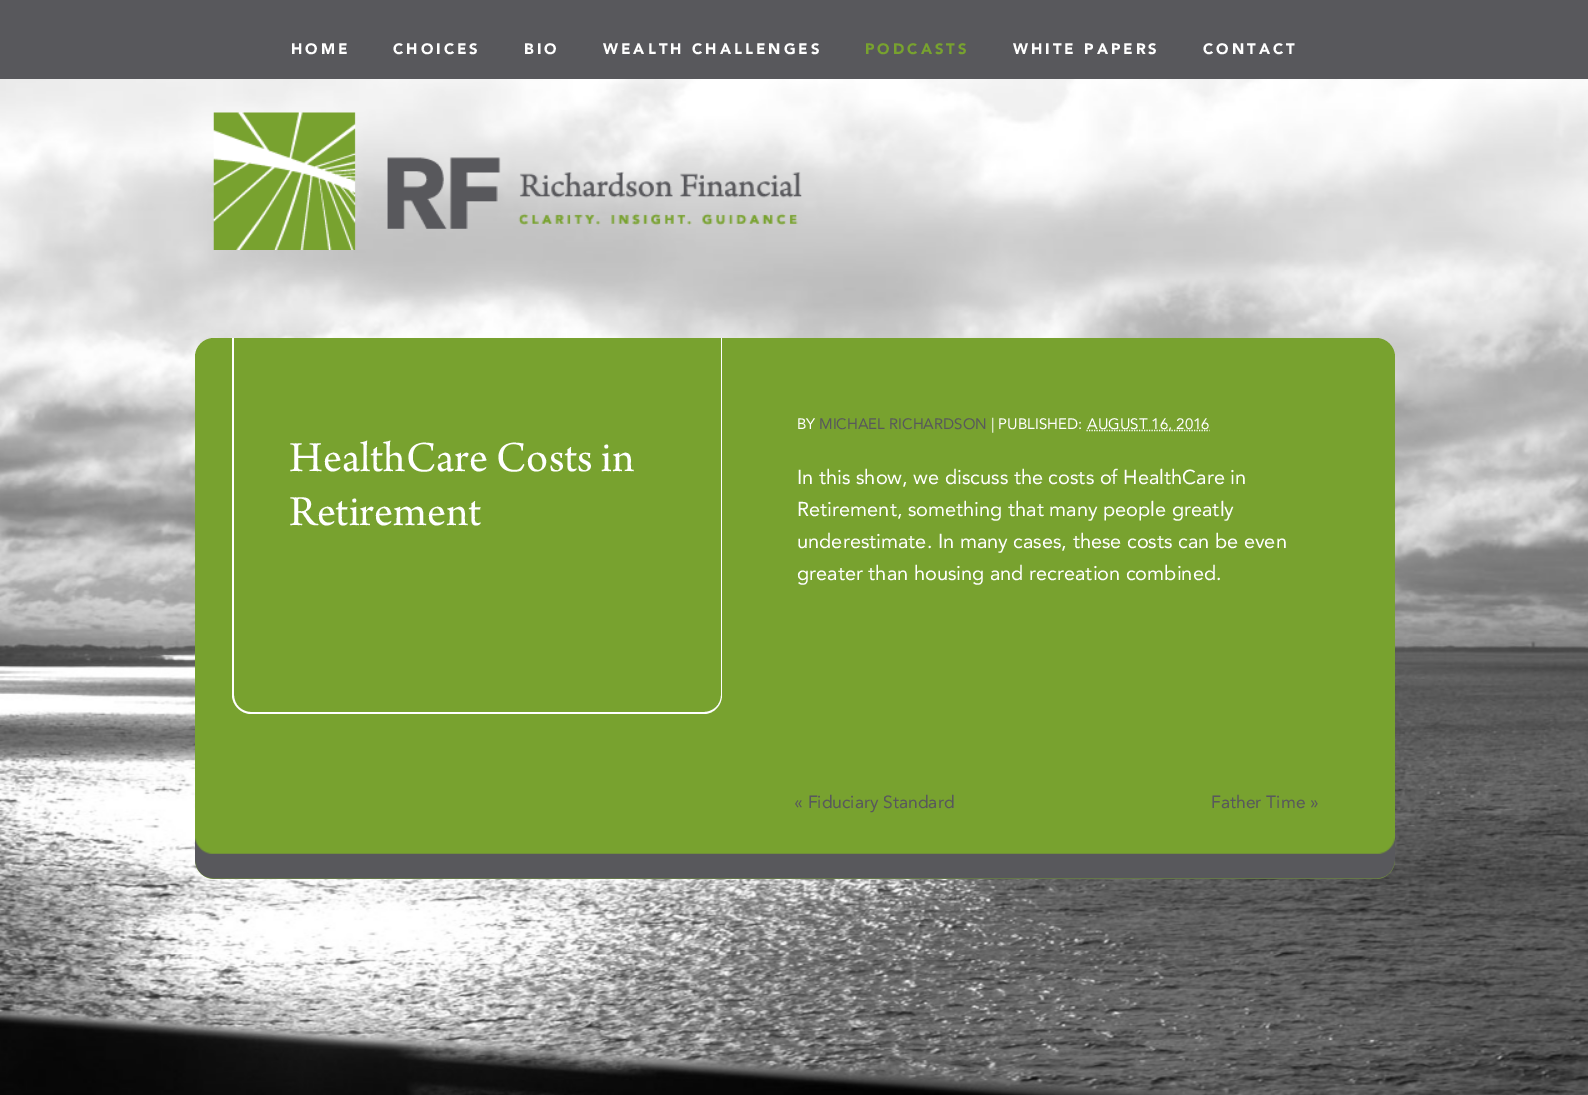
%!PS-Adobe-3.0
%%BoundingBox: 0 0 1588 1095
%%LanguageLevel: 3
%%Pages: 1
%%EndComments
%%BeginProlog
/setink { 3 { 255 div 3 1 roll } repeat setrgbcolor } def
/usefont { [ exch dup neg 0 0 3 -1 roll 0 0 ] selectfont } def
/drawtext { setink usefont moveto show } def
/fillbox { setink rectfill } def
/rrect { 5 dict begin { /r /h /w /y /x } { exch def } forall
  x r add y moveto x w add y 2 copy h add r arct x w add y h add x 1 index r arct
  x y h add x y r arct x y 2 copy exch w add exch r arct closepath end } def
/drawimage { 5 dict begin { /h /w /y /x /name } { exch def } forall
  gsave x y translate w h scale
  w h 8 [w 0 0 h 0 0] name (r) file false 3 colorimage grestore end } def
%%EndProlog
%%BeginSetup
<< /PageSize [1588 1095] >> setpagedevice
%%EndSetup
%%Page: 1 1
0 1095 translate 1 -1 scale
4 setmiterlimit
0 0 1588 1095 255 255 255 fillbox
(assets/img1.rgb) 0 79 1588 1016 drawimage
0 0 1588 79 88 88 92 fillbox
/Avenir-Black 15 usefont
255 255 255 setink
291 54 moveto 3 0 (HOME) ashow
393 54 moveto 3 0 (CHOICES) ashow
524 54 moveto 3 0 (BIO) ashow
603 54 moveto 3 0 (WEALTH CHALLENGES) ashow
120 162 47 setink
865 54 moveto 3 0 (PODCASTS) ashow
255 255 255 setink
1013 54 moveto 3 0 (WHITE PAPERS) ashow
1203 54 moveto 3 0 (CONTACT) ashow
(assets/img2.rgb) 213 112 589 138 drawimage
120 162 47 setink
195 338 1200 541 19 rrect fill
(assets/img3.rgb) 195 838 1200 41 drawimage
(BY) 797 429 /Avenir-Regular 15 255 255 255 drawtext
(MICHAEL RICHARDSON) 819 429 /Avenir-Regular 15 88 88 92 drawtext
(| PUBLISHED:) 991 429 /Avenir-Regular 15 255 255 255 drawtext
1.2 setlinewidth
[1.25 1.25] 0 setdash
1086.5 430.5 moveto 1209.5 430.5 lineto stroke
(AUGUST 16, 2016) 1087 429 /Avenir-Regular 15 255 255 255 drawtext
232 338 moveto 722 338 lineto 722 695 lineto 722 705 714 714 704 714 curveto 251 714 lineto 241 714 232 705 232 695 curveto closepath 234 338 moveto 721 338 lineto 721 695 lineto 721 705 713 712 704 712 curveto 251 712 lineto 242 712 234 705 234 695 curveto closepath eofill
(HealthCare Costs in) 289 471 /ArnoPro-Regular 45 255 255 255 drawtext
(Retirement) 289 525 /ArnoPro-Regular 45 255 255 255 drawtext
(In this show, we discuss the costs of HealthCare in) 797 484 /Avenir-Regular 20 255 255 255 drawtext
(Retirement, something that many people greatly) 797 516 /Avenir-Regular 20 255 255 255 drawtext
(underestimate. In many cases, these costs can be even) 797 548 /Avenir-Regular 20 255 255 255 drawtext
(greater than housing and recreation combined.) 797 580 /Avenir-Regular 20 255 255 255 drawtext
(« Fiduciary Standard) 794 808 /Avenir-Regular 17.5 88 88 92 drawtext
(Father Time ») 1211 808 /Avenir-Regular 17.5 88 88 92 drawtext
showpage
%%EOF
